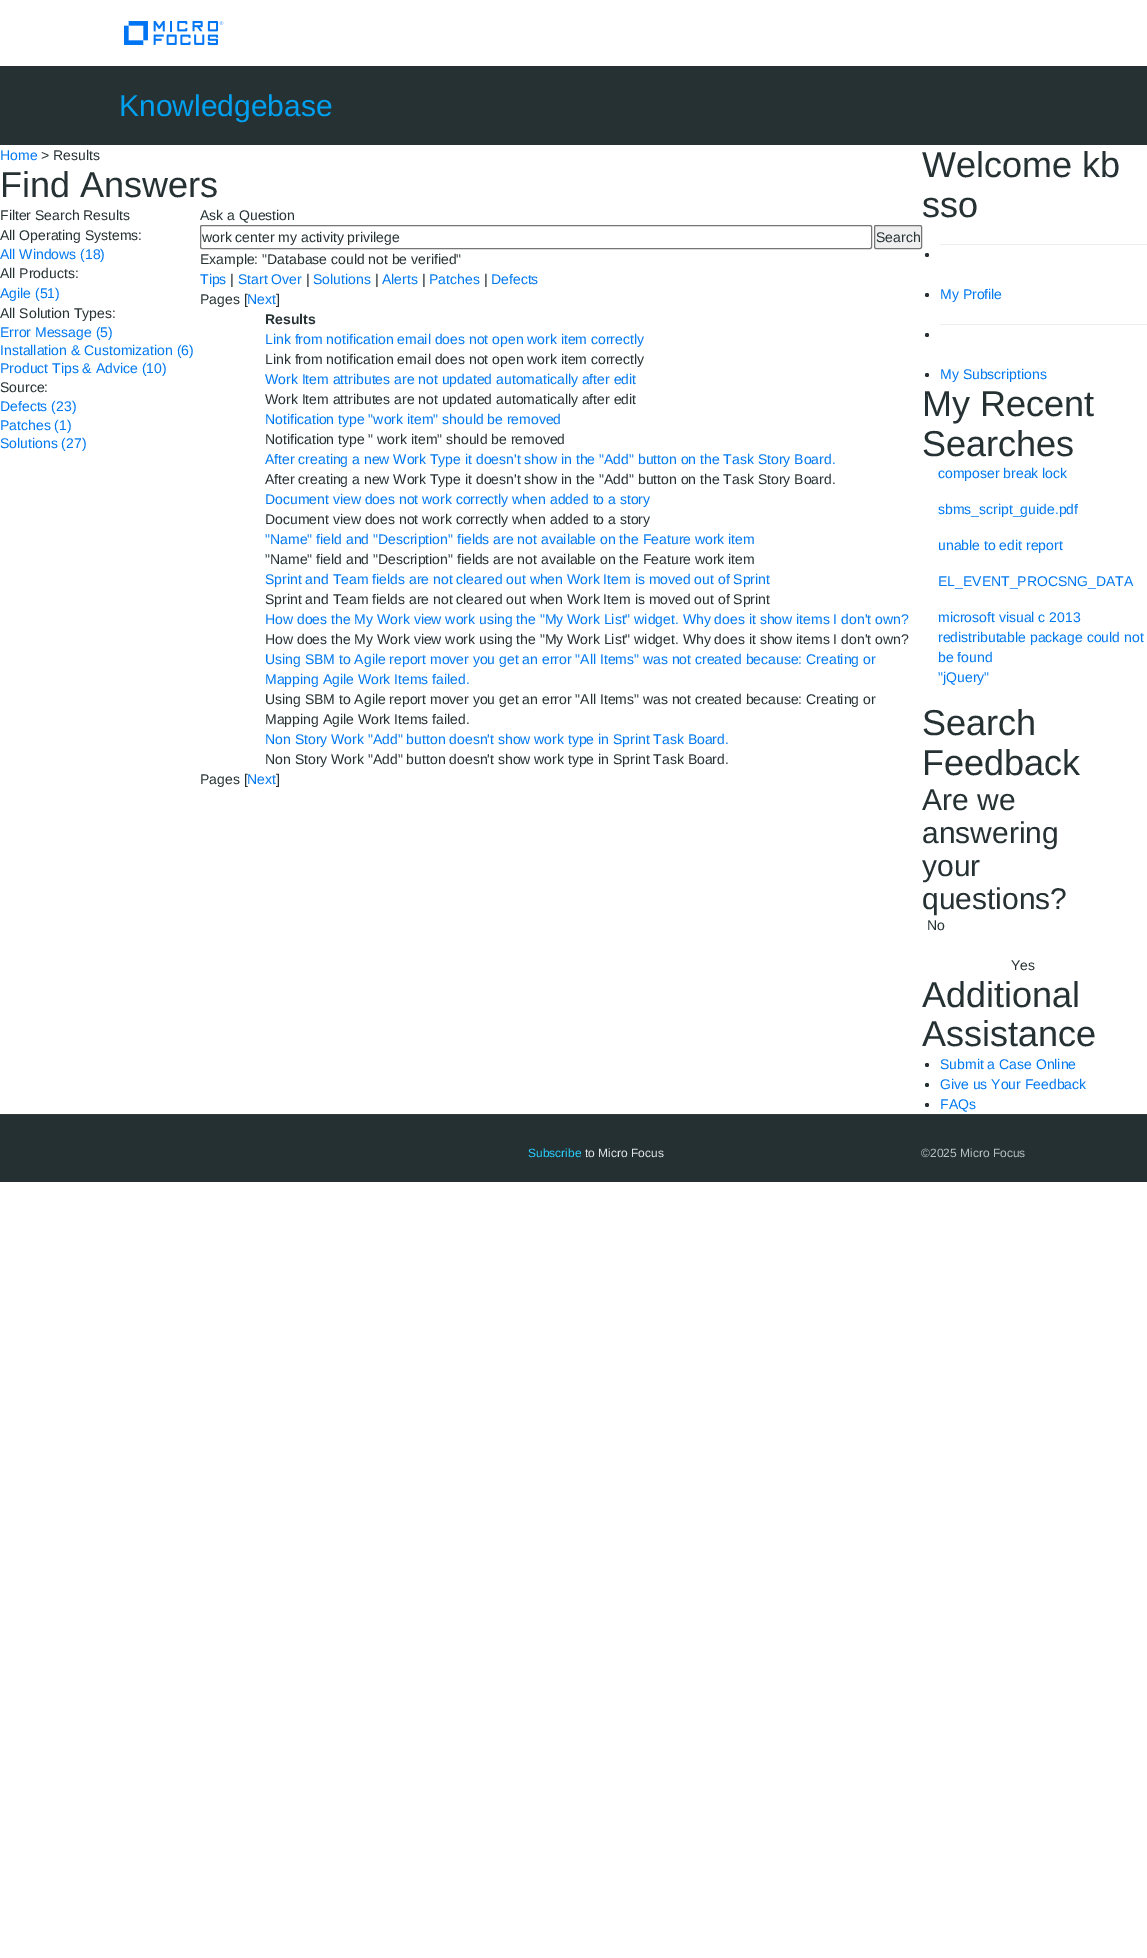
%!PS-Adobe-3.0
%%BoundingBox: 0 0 1147 1958
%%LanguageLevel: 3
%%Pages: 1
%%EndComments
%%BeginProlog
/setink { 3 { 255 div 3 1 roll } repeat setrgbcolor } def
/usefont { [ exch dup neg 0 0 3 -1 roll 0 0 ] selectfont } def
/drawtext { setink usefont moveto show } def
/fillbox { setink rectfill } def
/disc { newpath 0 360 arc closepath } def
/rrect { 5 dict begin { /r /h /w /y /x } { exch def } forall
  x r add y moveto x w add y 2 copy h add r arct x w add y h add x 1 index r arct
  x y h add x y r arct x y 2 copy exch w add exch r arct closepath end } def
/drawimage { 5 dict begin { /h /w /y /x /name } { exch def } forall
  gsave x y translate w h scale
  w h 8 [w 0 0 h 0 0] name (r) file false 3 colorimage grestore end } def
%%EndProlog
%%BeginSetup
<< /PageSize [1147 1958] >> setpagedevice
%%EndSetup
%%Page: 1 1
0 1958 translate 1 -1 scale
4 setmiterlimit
0 0 1147 1958 255 255 255 fillbox
(assets/img1.rgb) 124 20 100 26 drawimage
0 66 1147 79 38 49 51 fillbox
(Knowledgebase) 119 116 /LiberationSans-Regular 30 0 160 239 drawtext
(Home) 0 160 /LiberationSans-Regular 14 0 120 239 drawtext
(> Results) 41 160 /LiberationSans-Regular 14 38 49 51 drawtext
(Find Answers) 0 197 /LiberationSans-Regular 36 38 49 51 drawtext
(Filter Search Results) 0 220 /LiberationSans-Regular 14 38 49 51 drawtext
(All Operating Systems:) 0 240 /LiberationSans-Regular 14 38 49 51 drawtext
(All Windows \(18\)) 0 259 /LiberationSans-Regular 14 0 120 239 drawtext
(All Products:) 0 278 /LiberationSans-Regular 14 38 49 51 drawtext
(Agile \(51\)) 0 298 /LiberationSans-Regular 14 0 120 239 drawtext
(All Solution Types:) 0 318 /LiberationSans-Regular 14 38 49 51 drawtext
(Error Message \(5\)) 0 337 /LiberationSans-Regular 14 0 120 239 drawtext
(Installation & Customization \(6\)) 0 355 /LiberationSans-Regular 14 0 120 239 drawtext
(Product Tips & Advice \(10\)) 0 373 /LiberationSans-Regular 14 0 120 239 drawtext
(Source:) 0 392 /LiberationSans-Regular 14 38 49 51 drawtext
(Defects \(23\)) 0 411 /LiberationSans-Regular 14 0 120 239 drawtext
(Patches \(1\)) 0 430 /LiberationSans-Regular 14 0 120 239 drawtext
(Solutions \(27\)) 0 448 /LiberationSans-Regular 14 0 120 239 drawtext
(Ask a Question) 200 220 /LiberationSans-Regular 14 38 49 51 drawtext
118 118 118 setink
200.5 225.5 671 23 1.5 rrect stroke
(work center my activity privilege) 202 242 /LiberationSans-Regular 14 38 49 51 drawtext
239 239 239 setink
874.5 225.5 47 23 1.5 rrect gsave fill grestore
118 118 118 setink
stroke
(Search) 876 242 /LiberationSans-Regular 14 38 49 51 drawtext
(Example: "Database could not be verified") 200 264 /LiberationSans-Regular 14 38 49 51 drawtext
(Tips) 200 284 /LiberationSans-Regular 14 0 120 239 drawtext
(|) 230 284 /LiberationSans-Regular 14 38 49 51 drawtext
(Start Over) 238 284 /LiberationSans-Regular 14 0 120 239 drawtext
(|) 306 284 /LiberationSans-Regular 14 38 49 51 drawtext
(Solutions) 313 284 /LiberationSans-Regular 14 0 120 239 drawtext
(|) 375 284 /LiberationSans-Regular 14 38 49 51 drawtext
(Alerts) 382 284 /LiberationSans-Regular 14 0 120 239 drawtext
(|) 422 284 /LiberationSans-Regular 14 38 49 51 drawtext
(Patches) 429 284 /LiberationSans-Regular 14 0 120 239 drawtext
(|) 484 284 /LiberationSans-Regular 14 38 49 51 drawtext
(Defects) 491 284 /LiberationSans-Regular 14 0 120 239 drawtext
(Pages [) 200 304 /LiberationSans-Regular 14 38 49 51 drawtext
(Next) 247 304 /LiberationSans-Regular 14 0 120 239 drawtext
(]) 276 304 /LiberationSans-Regular 14 38 49 51 drawtext
(Results) 265 324 /LiberationSans-Bold 14 38 49 51 drawtext
(Link from notification email does not open work item correctly) 265 344 /LiberationSans-Regular 14 0 120 239 drawtext
(Link from notification email does not open work item correctly) 265 364 /LiberationSans-Regular 14 38 49 51 drawtext
(Work Item attributes are not updated automatically after edit) 265 384 /LiberationSans-Regular 14 0 120 239 drawtext
(Work Item attributes are not updated automatically after edit) 265 404 /LiberationSans-Regular 14 38 49 51 drawtext
(Notification type "work item" should be removed) 265 424 /LiberationSans-Regular 14 0 120 239 drawtext
(Notification type " work item" should be removed) 265 444 /LiberationSans-Regular 14 38 49 51 drawtext
(After creating a new Work Type it doesn't show in the "Add" button on the Task Story Board.) 265 464 /LiberationSans-Regular 14 0 120 239 drawtext
(After creating a new Work Type it doesn't show in the "Add" button on the Task Story Board.) 265 484 /LiberationSans-Regular 14 38 49 51 drawtext
(Document view does not work correctly when added to a story) 265 504 /LiberationSans-Regular 14 0 120 239 drawtext
(Document view does not work correctly when added to a story) 265 524 /LiberationSans-Regular 14 38 49 51 drawtext
("Name" field and "Description" fields are not available on the Feature work item) 265 544 /LiberationSans-Regular 14 0 120 239 drawtext
("Name" field and "Description" fields are not available on the Feature work item) 265 564 /LiberationSans-Regular 14 38 49 51 drawtext
(Sprint and Team fields are not cleared out when Work Item is moved out of Sprint) 265 584 /LiberationSans-Regular 14 0 120 239 drawtext
(Sprint and Team fields are not cleared out when Work Item is moved out of Sprint) 265 604 /LiberationSans-Regular 14 38 49 51 drawtext
(How does the My Work view work using the "My Work List" widget. Why does it show items I don't own?) 265 624 /LiberationSans-Regular 14 0 120 239 drawtext
(How does the My Work view work using the "My Work List" widget. Why does it show items I don't own?) 265 644 /LiberationSans-Regular 14 38 49 51 drawtext
(Using SBM to Agile report mover you get an error "All Items" was not created because: Creating or) 265 664 /LiberationSans-Regular 14 0 120 239 drawtext
(Mapping Agile Work Items failed.) 265 684 /LiberationSans-Regular 14 0 120 239 drawtext
(Using SBM to Agile report mover you get an error "All Items" was not created because: Creating or) 265 704 /LiberationSans-Regular 14 38 49 51 drawtext
(Mapping Agile Work Items failed.) 265 724 /LiberationSans-Regular 14 38 49 51 drawtext
(Non Story Work "Add" button doesn't show work type in Sprint Task Board.) 265 744 /LiberationSans-Regular 14 0 120 239 drawtext
(Non Story Work "Add" button doesn't show work type in Sprint Task Board.) 265 764 /LiberationSans-Regular 14 38 49 51 drawtext
(Pages [) 200 784 /LiberationSans-Regular 14 38 49 51 drawtext
(Next) 247 784 /LiberationSans-Regular 14 0 120 239 drawtext
(]) 276 784 /LiberationSans-Regular 14 38 49 51 drawtext
(Welcome kb) 922 177 /LiberationSans-Regular 36 38 49 51 drawtext
(sso) 922 217 /LiberationSans-Regular 36 38 49 51 drawtext
940 244 207 1 238 238 238 fillbox
38 49 51 setink
927 255 2 disc fill
927 295 2 disc fill
(My Profile) 940 299 /LiberationSans-Regular 14 0 120 239 drawtext
940 324 207 1 238 238 238 fillbox
38 49 51 setink
927 335 2 disc fill
927 375 2 disc fill
(My Subscriptions) 940 379 /LiberationSans-Regular 14 0 120 239 drawtext
(My Recent) 922 416 /LiberationSans-Regular 36 38 49 51 drawtext
(Searches) 922 456 /LiberationSans-Regular 36 38 49 51 drawtext
(composer break lock) 938 478 /LiberationSans-Regular 14 0 120 239 drawtext
(sbms_script_guide.pdf) 938 514 /LiberationSans-Regular 14 0 120 239 drawtext
(unable to edit report) 938 550 /LiberationSans-Regular 14 0 120 239 drawtext
(EL_EVENT_PROCSNG_DATA) 938 586 /LiberationSans-Regular 14 0 120 239 drawtext
(microsoft visual c 2013) 938 622 /LiberationSans-Regular 14 0 120 239 drawtext
(redistributable package could not) 938 642 /LiberationSans-Regular 14 0 120 239 drawtext
(be found) 938 662 /LiberationSans-Regular 14 0 120 239 drawtext
("jQuery") 938 682 /LiberationSans-Regular 14 0 120 239 drawtext
(Search) 922 735 /LiberationSans-Regular 36 38 49 51 drawtext
(Feedback) 922 775 /LiberationSans-Regular 36 38 49 51 drawtext
(Are we) 922 810 /LiberationSans-Regular 30 38 49 51 drawtext
(answering) 922 843 /LiberationSans-Regular 30 38 49 51 drawtext
(your) 922 876 /LiberationSans-Regular 30 38 49 51 drawtext
(questions?) 922 909 /LiberationSans-Regular 30 38 49 51 drawtext
(No) 927 930 /LiberationSans-Regular 14 38 49 51 drawtext
(Yes) 1011 970 /LiberationSans-Regular 14 38 49 51 drawtext
(Additional) 922 1007 /LiberationSans-Regular 36 38 49 51 drawtext
(Assistance) 922 1046 /LiberationSans-Regular 36 38 49 51 drawtext
927 1065 2 disc fill
(Submit a Case Online) 940 1069 /LiberationSans-Regular 14 0 120 239 drawtext
38 49 51 setink
927 1085 2 disc fill
(Give us Your Feedback) 940 1089 /LiberationSans-Regular 14 0 120 239 drawtext
38 49 51 setink
927 1105 2 disc fill
(FAQs) 940 1109 /LiberationSans-Regular 14 0 120 239 drawtext
0 1114 1147 1 50 57 57 fillbox
0 1115 1147 67 37 48 50 fillbox
(Subscribe) 528 1157 /LiberationSans-Regular 12 41 206 255 drawtext
(to Micro Focus) 585 1157 /LiberationSans-Regular 12 227 231 234 drawtext
(©2025 Micro Focus) 921 1157 /LiberationSans-Regular 12 182 193 194 drawtext
showpage
%%EOF
